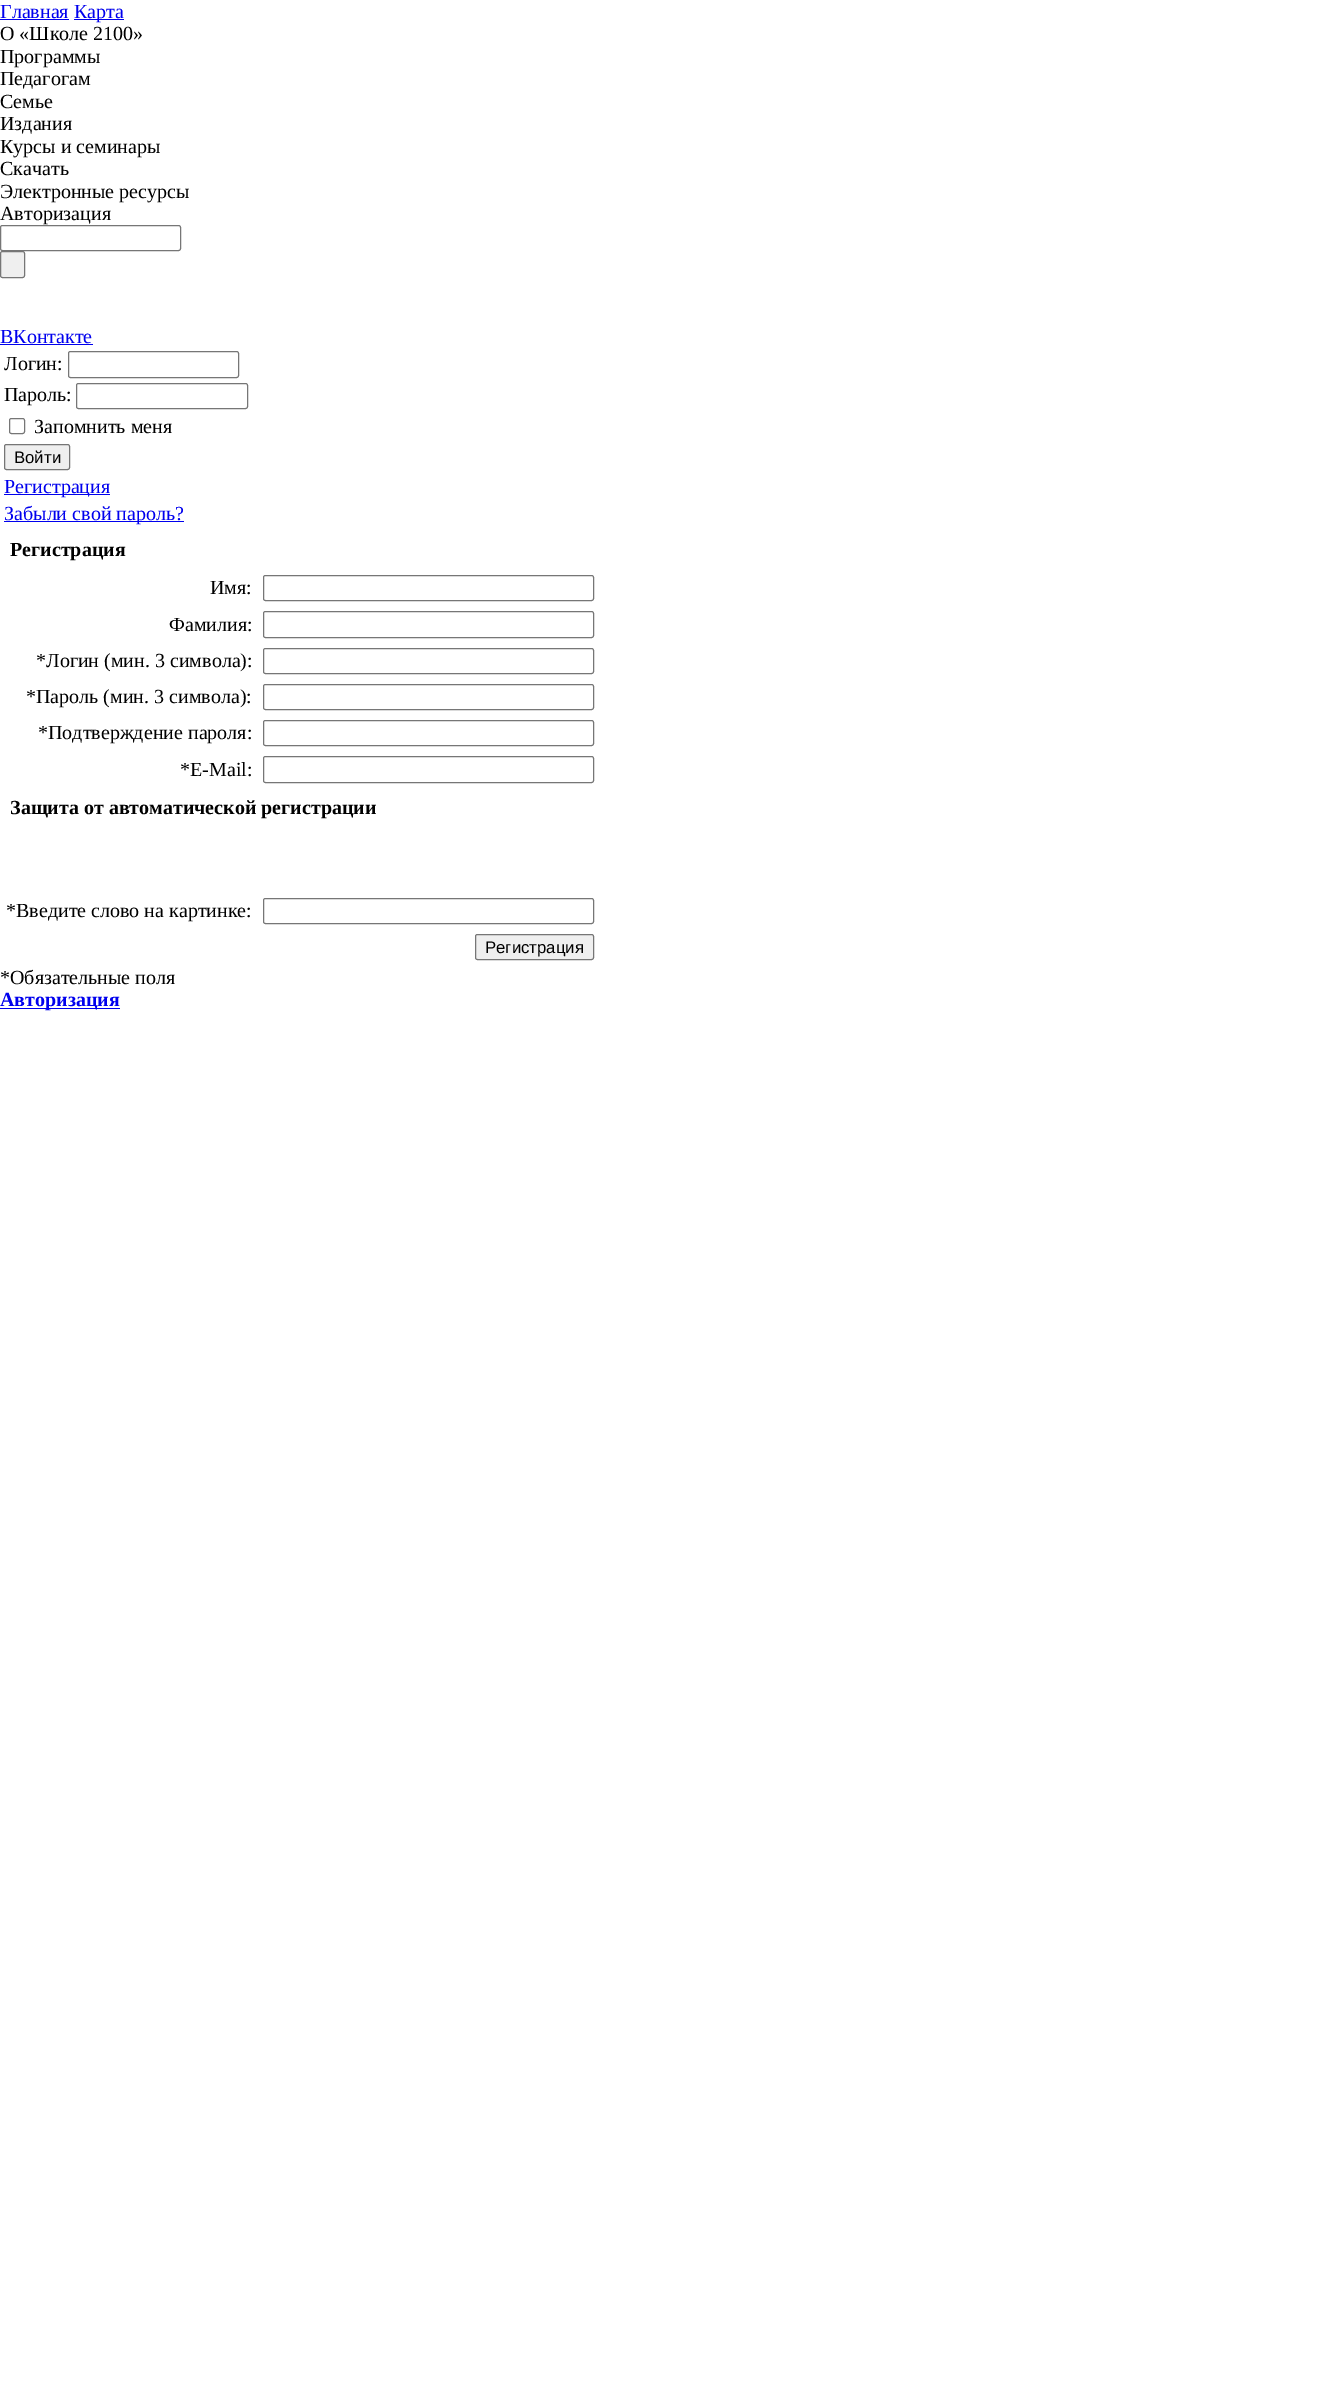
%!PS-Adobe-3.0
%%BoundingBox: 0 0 1338 2407
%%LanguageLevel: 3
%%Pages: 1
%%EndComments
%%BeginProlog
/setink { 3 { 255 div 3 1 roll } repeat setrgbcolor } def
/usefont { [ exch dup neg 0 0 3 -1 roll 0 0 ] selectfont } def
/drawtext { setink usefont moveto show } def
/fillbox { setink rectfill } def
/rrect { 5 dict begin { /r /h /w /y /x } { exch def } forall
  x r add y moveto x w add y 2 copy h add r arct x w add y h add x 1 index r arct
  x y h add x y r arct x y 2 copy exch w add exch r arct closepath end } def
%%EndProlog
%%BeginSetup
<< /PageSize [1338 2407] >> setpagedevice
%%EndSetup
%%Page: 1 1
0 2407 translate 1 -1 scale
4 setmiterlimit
0 0 1338 2407 255 255 255 fillbox
(Главная) 0 18 /LiberationSerif-Regular 20 0 0 238 drawtext
0 19 69 1 0 0 238 fillbox
74 19 50 1 0 0 238 fillbox
(Карта) 74 18 /LiberationSerif-Regular 20 0 0 238 drawtext
(О «Школе 2100») 0 40 /LiberationSerif-Regular 20 0 0 0 drawtext
(Программы) 0 63 /LiberationSerif-Regular 20 0 0 0 drawtext
(Педагогам) 0 85 /LiberationSerif-Regular 20 0 0 0 drawtext
(Семье) 0 108 /LiberationSerif-Regular 20 0 0 0 drawtext
(Издания) 0 130 /LiberationSerif-Regular 20 0 0 0 drawtext
(Курсы и семинары) 0 153 /LiberationSerif-Regular 20 0 0 0 drawtext
(Скачать) 0 175 /LiberationSerif-Regular 20 0 0 0 drawtext
(Электронные ресурсы) 0 198 /LiberationSerif-Regular 20 0 0 0 drawtext
(Авторизация) 0 220 /LiberationSerif-Regular 20 0 0 0 drawtext
118 118 118 setink
0.5 225.5 180 25 2 rrect stroke
239 239 239 setink
0.5 251.5 24 26 2 rrect gsave fill grestore
118 118 118 setink
stroke
(ВКонтакте) 0 343 /LiberationSerif-Regular 20 0 0 238 drawtext
0 344 93 1 0 0 238 fillbox
(Логин:) 4 370 /LiberationSerif-Regular 20 0 0 0 drawtext
118 118 118 setink
68.5 351.5 170 26 2 rrect stroke
(Пароль:) 4 401 /LiberationSerif-Regular 20 0 0 0 drawtext
118 118 118 setink
76.5 383.5 171 25 2 rrect stroke
9.5 418.5 15 15 2 rrect stroke
(Запомнить меня) 34 433 /LiberationSerif-Regular 20 0 0 0 drawtext
239 239 239 setink
4.5 444.5 65 25 2 rrect gsave fill grestore
118 118 118 setink
stroke
(Войти) 14 463 /LiberationSans-Regular 16.75 0 0 0 drawtext
4 494 106 1 0 0 238 fillbox
(Регистрация) 4 493 /LiberationSerif-Regular 20 0 0 238 drawtext
4 521 180 1 0 0 238 fillbox
(Забыли свой пароль?) 4 520 /LiberationSerif-Regular 20 0 0 238 drawtext
(Регистрация) 10 556 /LiberationSerif-Bold 20 0 0 0 drawtext
(Имя:) 210 594 /LiberationSerif-Regular 20 0 0 0 drawtext
118 118 118 setink
263.5 575.5 330 25 2 rrect stroke
(Фамилия:) 169 631 /LiberationSerif-Regular 20 0 0 0 drawtext
118 118 118 setink
263.5 611.5 330 26 2 rrect stroke
(*Логин \(мин. 3 символа\):) 36 667 /LiberationSerif-Regular 20 0 0 0 drawtext
118 118 118 setink
263.5 648.5 330 25 2 rrect stroke
(*Пароль \(мин. 3 символа\):) 26 703 /LiberationSerif-Regular 20 0 0 0 drawtext
118 118 118 setink
263.5 684.5 330 25 2 rrect stroke
(*Подтверждение пароля:) 38 739 /LiberationSerif-Regular 20 0 0 0 drawtext
118 118 118 setink
263.5 720.5 330 25 2 rrect stroke
(*E-Mail:) 180 776 /LiberationSerif-Regular 20 0 0 0 drawtext
118 118 118 setink
263.5 756.5 330 26 2 rrect stroke
(Защита от автоматической регистрации) 10 814 /LiberationSerif-Bold 20 0 0 0 drawtext
(*Введите слово на картинке:) 6 917 /LiberationSerif-Regular 20 0 0 0 drawtext
118 118 118 setink
263.5 898.5 330 25 2 rrect stroke
239 239 239 setink
475.5 934.5 118 25 2 rrect gsave fill grestore
118 118 118 setink
stroke
(Регистрация) 485 953 /LiberationSans-Regular 16.75 0 0 0 drawtext
(*Обязательные поля) 0 984 /LiberationSerif-Regular 20 0 0 0 drawtext
0 1008 120 1 0 0 238 fillbox
(Авторизация) 0 1006 /LiberationSerif-Bold 20 0 0 238 drawtext
showpage
%%EOF
